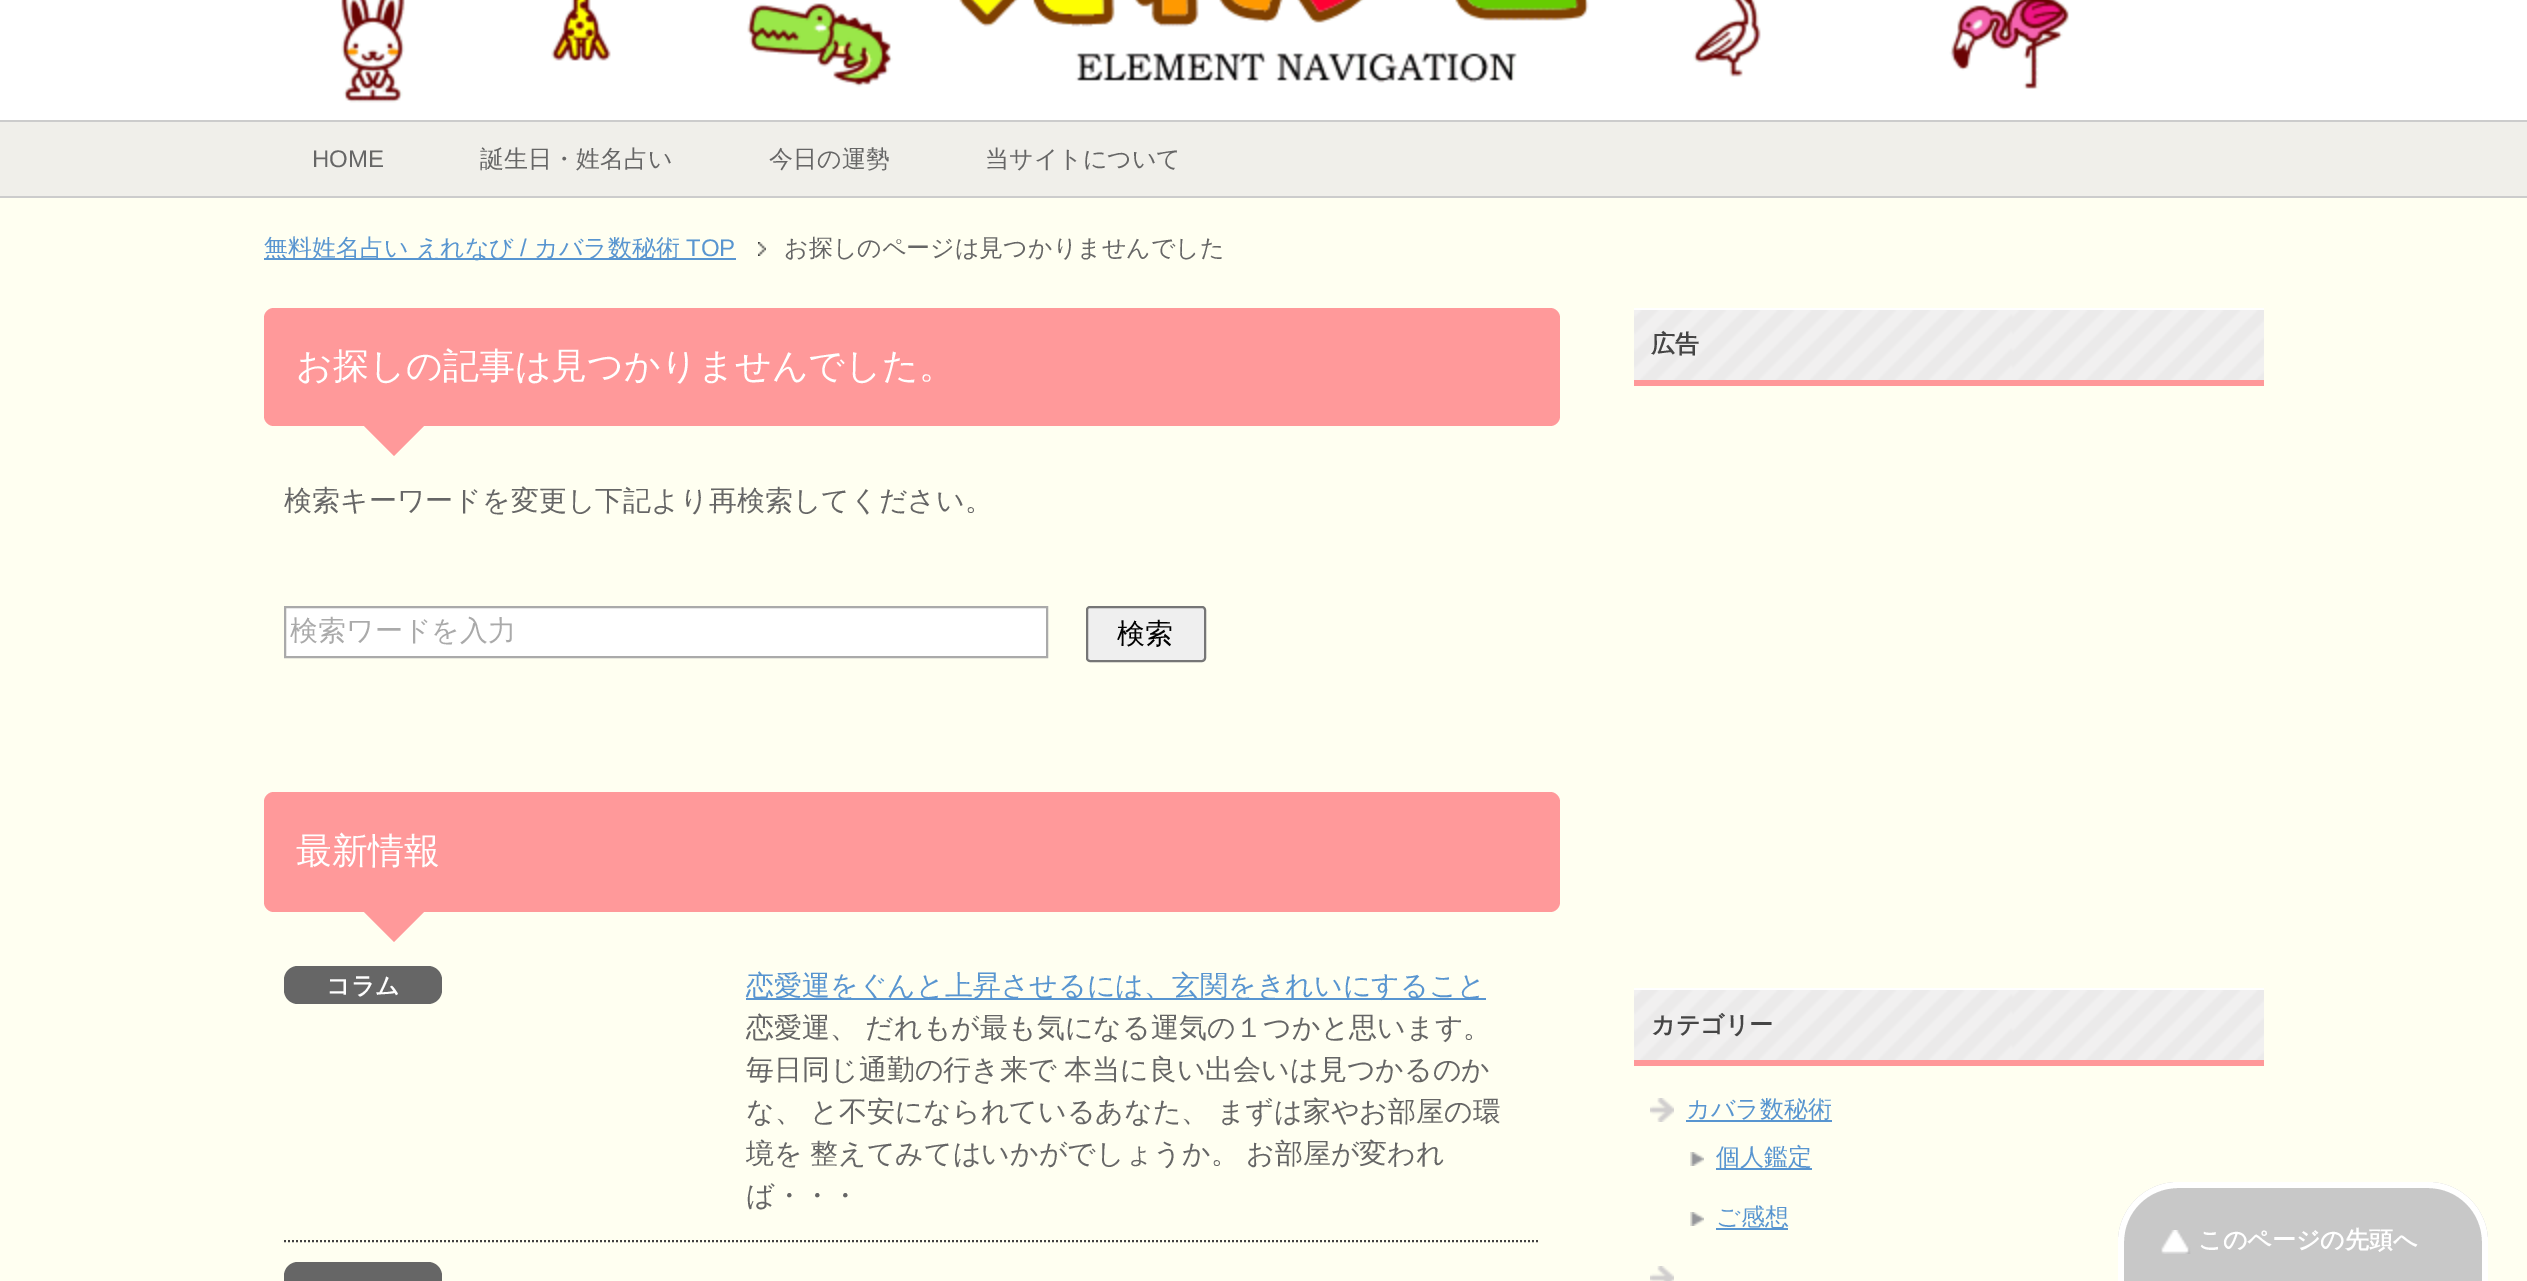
%!PS-Adobe-3.0
%%BoundingBox: 0 0 2527 1281
%%LanguageLevel: 3
%%Pages: 1
%%EndComments
%%BeginProlog
/setink { 3 { 255 div 3 1 roll } repeat setrgbcolor } def
/usefont { [ exch dup neg 0 0 3 -1 roll 0 0 ] selectfont } def
/drawtext { setink usefont moveto show } def
/fillbox { setink rectfill } def
/rrect { 5 dict begin { /r /h /w /y /x } { exch def } forall
  x r add y moveto x w add y 2 copy h add r arct x w add y h add x 1 index r arct
  x y h add x y r arct x y 2 copy exch w add exch r arct closepath end } def
/drawimage { 5 dict begin { /h /w /y /x /name } { exch def } forall
  gsave x y translate w h scale
  w h 8 [w 0 0 h 0 0] name (r) file false 3 colorimage grestore end } def
%%EndProlog
%%BeginSetup
<< /PageSize [2527 1281] >> setpagedevice
%%EndSetup
%%Page: 1 1
0 1281 translate 1 -1 scale
4 setmiterlimit
0 0 2527 1281 255 255 241 fillbox
0 0 2527 120 255 255 255 fillbox
(assets/img1.rgb) 341 0 1728 103 drawimage
0 122 2527 74 240 239 234 fillbox
0 120 2527 2 204 204 204 fillbox
0 196 2527 2 204 204 204 fillbox
(HOME) 312 167 /LiberationSans-Regular 24 102 102 102 drawtext
(誕生日・姓名占い) 480 167 /WenQuanYiZenHei-Medium 24 102 102 102 drawtext
(今日の運勢) 769 167 /WenQuanYiZenHei-Medium 24 102 102 102 drawtext
(当サイトについて) 985 167 /WenQuanYiZenHei-Medium 24 102 102 102 drawtext
264 258 472 2 88 149 208 fillbox
(無料姓名占い えれなび) 264 256 /WenQuanYiZenHei-Medium 24 88 149 208 drawtext
(/) 520 256 /LiberationSans-Regular 24 88 149 208 drawtext
(カバラ数秘術) 534 256 /WenQuanYiZenHei-Medium 24 88 149 208 drawtext
(TOP) 686 256 /LiberationSans-Regular 24 88 149 208 drawtext
(assets/img2.rgb) 758 242 8 14 drawimage
(お探しのページは見つかりませんでした) 784 256 /WenQuanYiZenHei-Medium 24 102 102 102 drawtext
255 153 154 setink
264 308 1296 118 10 rrect fill
(お探しの記事は見つかりませんでした。) 296 378 /WenQuanYiZenHei-Medium 36 255 255 255 drawtext
255 153 154 setink
364 426 moveto 424 426 lineto 394 456 lineto closepath fill
(検索キーワードを変更し下記より再検索してください。) 284 510 /WenQuanYiZenHei-Medium 28 102 102 102 drawtext
255 255 255 setink
285 607 moveto 1047 607 lineto 1047 657 lineto 285 657 lineto closepath gsave fill grestore
170 170 170 setink
2 setlinewidth
stroke
(検索ワードを入力) 290 640 /WenQuanYiZenHei-Medium 28 170 170 170 drawtext
239 239 239 setink
1087 607 118 54 3 rrect gsave fill grestore
118 118 118 setink
stroke
(検索) 1117 643 /WenQuanYiZenHei-Medium 28 0 0 0 drawtext
255 153 154 setink
264 792 1296 120 10 rrect fill
(最新情報) 296 863 /WenQuanYiZenHei-Medium 36 255 255 255 drawtext
255 153 154 setink
364 912 moveto 424 912 lineto 394 942 lineto closepath fill
102 102 102 setink
284 966 158 38 14 rrect fill
(コラム) 326 994 /WenQuanYiZenHei-Bold 24 255 255 255 drawtext
65 65 65 setink
[2 2] 0 setdash
284 1241 moveto 1540 1241 lineto stroke
746 998 740 2 88 149 208 fillbox
(恋愛運をぐんと上昇させるには、玄関をきれいにすること) 746 995 /WenQuanYiZenHei-Medium 28 88 149 208 drawtext
102 102 102 setink
746 1037 moveto -1 0 32 (恋愛運、 だれもが最も気になる運気の１つかと思います。) widthshow
746 1079 moveto -1 0 32 (毎日同じ通勤の行き来で 本当に良い出会いは見つかるのか) widthshow
746 1121 moveto -1 0 32 (な、 と不安になられているあなた、 まずは家やお部屋の環) widthshow
746 1163 moveto -1 0 32 (境を 整えてみてはいかがでしょうか。 お部屋が変われ) widthshow
(ば・・・) 746 1205 /WenQuanYiZenHei-Medium 28 102 102 102 drawtext
284 1262 158 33 14 rrect fill
1634 310 630 70 235 234 234 fillbox
(assets/img3.rgb) 1634 310 630 70 drawimage
1634 308 630 2 255 255 255 fillbox
1634 380 630 6 255 152 153 fillbox
(広告) 1651 352 /WenQuanYiZenHei-Bold 24 69 69 69 drawtext
1634 990 630 70 235 234 234 fillbox
(assets/img3.rgb) 1634 990 630 70 drawimage
1634 988 630 2 255 255 255 fillbox
1634 1060 630 6 255 152 153 fillbox
(カテゴリー) 1651 1033 /WenQuanYiZenHei-Bold 24 69 69 69 drawtext
(assets/img4.rgb) 1650 1098 24 24 drawimage
1686 1120 146 2 88 149 208 fillbox
(カバラ数秘術) 1686 1117 /WenQuanYiZenHei-Medium 24 88 149 208 drawtext
(assets/img5.rgb) 1690 1152 14 14 drawimage
1716 1168 96 2 88 149 208 fillbox
(個人鑑定) 1716 1165 /WenQuanYiZenHei-Medium 24 88 149 208 drawtext
(assets/img5.rgb) 1690 1212 14 14 drawimage
1716 1228 72 2 88 149 208 fillbox
(ご感想) 1716 1225 /WenQuanYiZenHei-Medium 24 88 149 208 drawtext
(assets/img6.rgb) 1650 1266 24 15 drawimage
200 200 200 setink
2178 1182 moveto 2428 1182 lineto 2461 1182 2488 1209 2488 1242 curveto 2488 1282 lineto 2118 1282 lineto 2118 1242 lineto 2118 1209 2145 1182 2178 1182 curveto closepath fill
(assets/img7.rgb) 2161 1230 30 24 drawimage
255 255 255 setink
2178 1182 moveto 2428 1182 lineto 2461 1182 2488 1209 2488 1242 curveto 2488 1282 lineto 2118 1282 lineto 2118 1242 lineto 2118 1209 2145 1182 2178 1182 curveto closepath 2178 1188 moveto 2428 1188 lineto 2458 1188 2482 1212 2482 1242 curveto 2482 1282 lineto 2124 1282 lineto 2124 1242 lineto 2124 1212 2148 1188 2178 1188 curveto closepath eofill
(このページの先頭へ) 2198 1248 /WenQuanYiZenHei-Bold 24 255 255 255 drawtext
showpage
%%EOF
